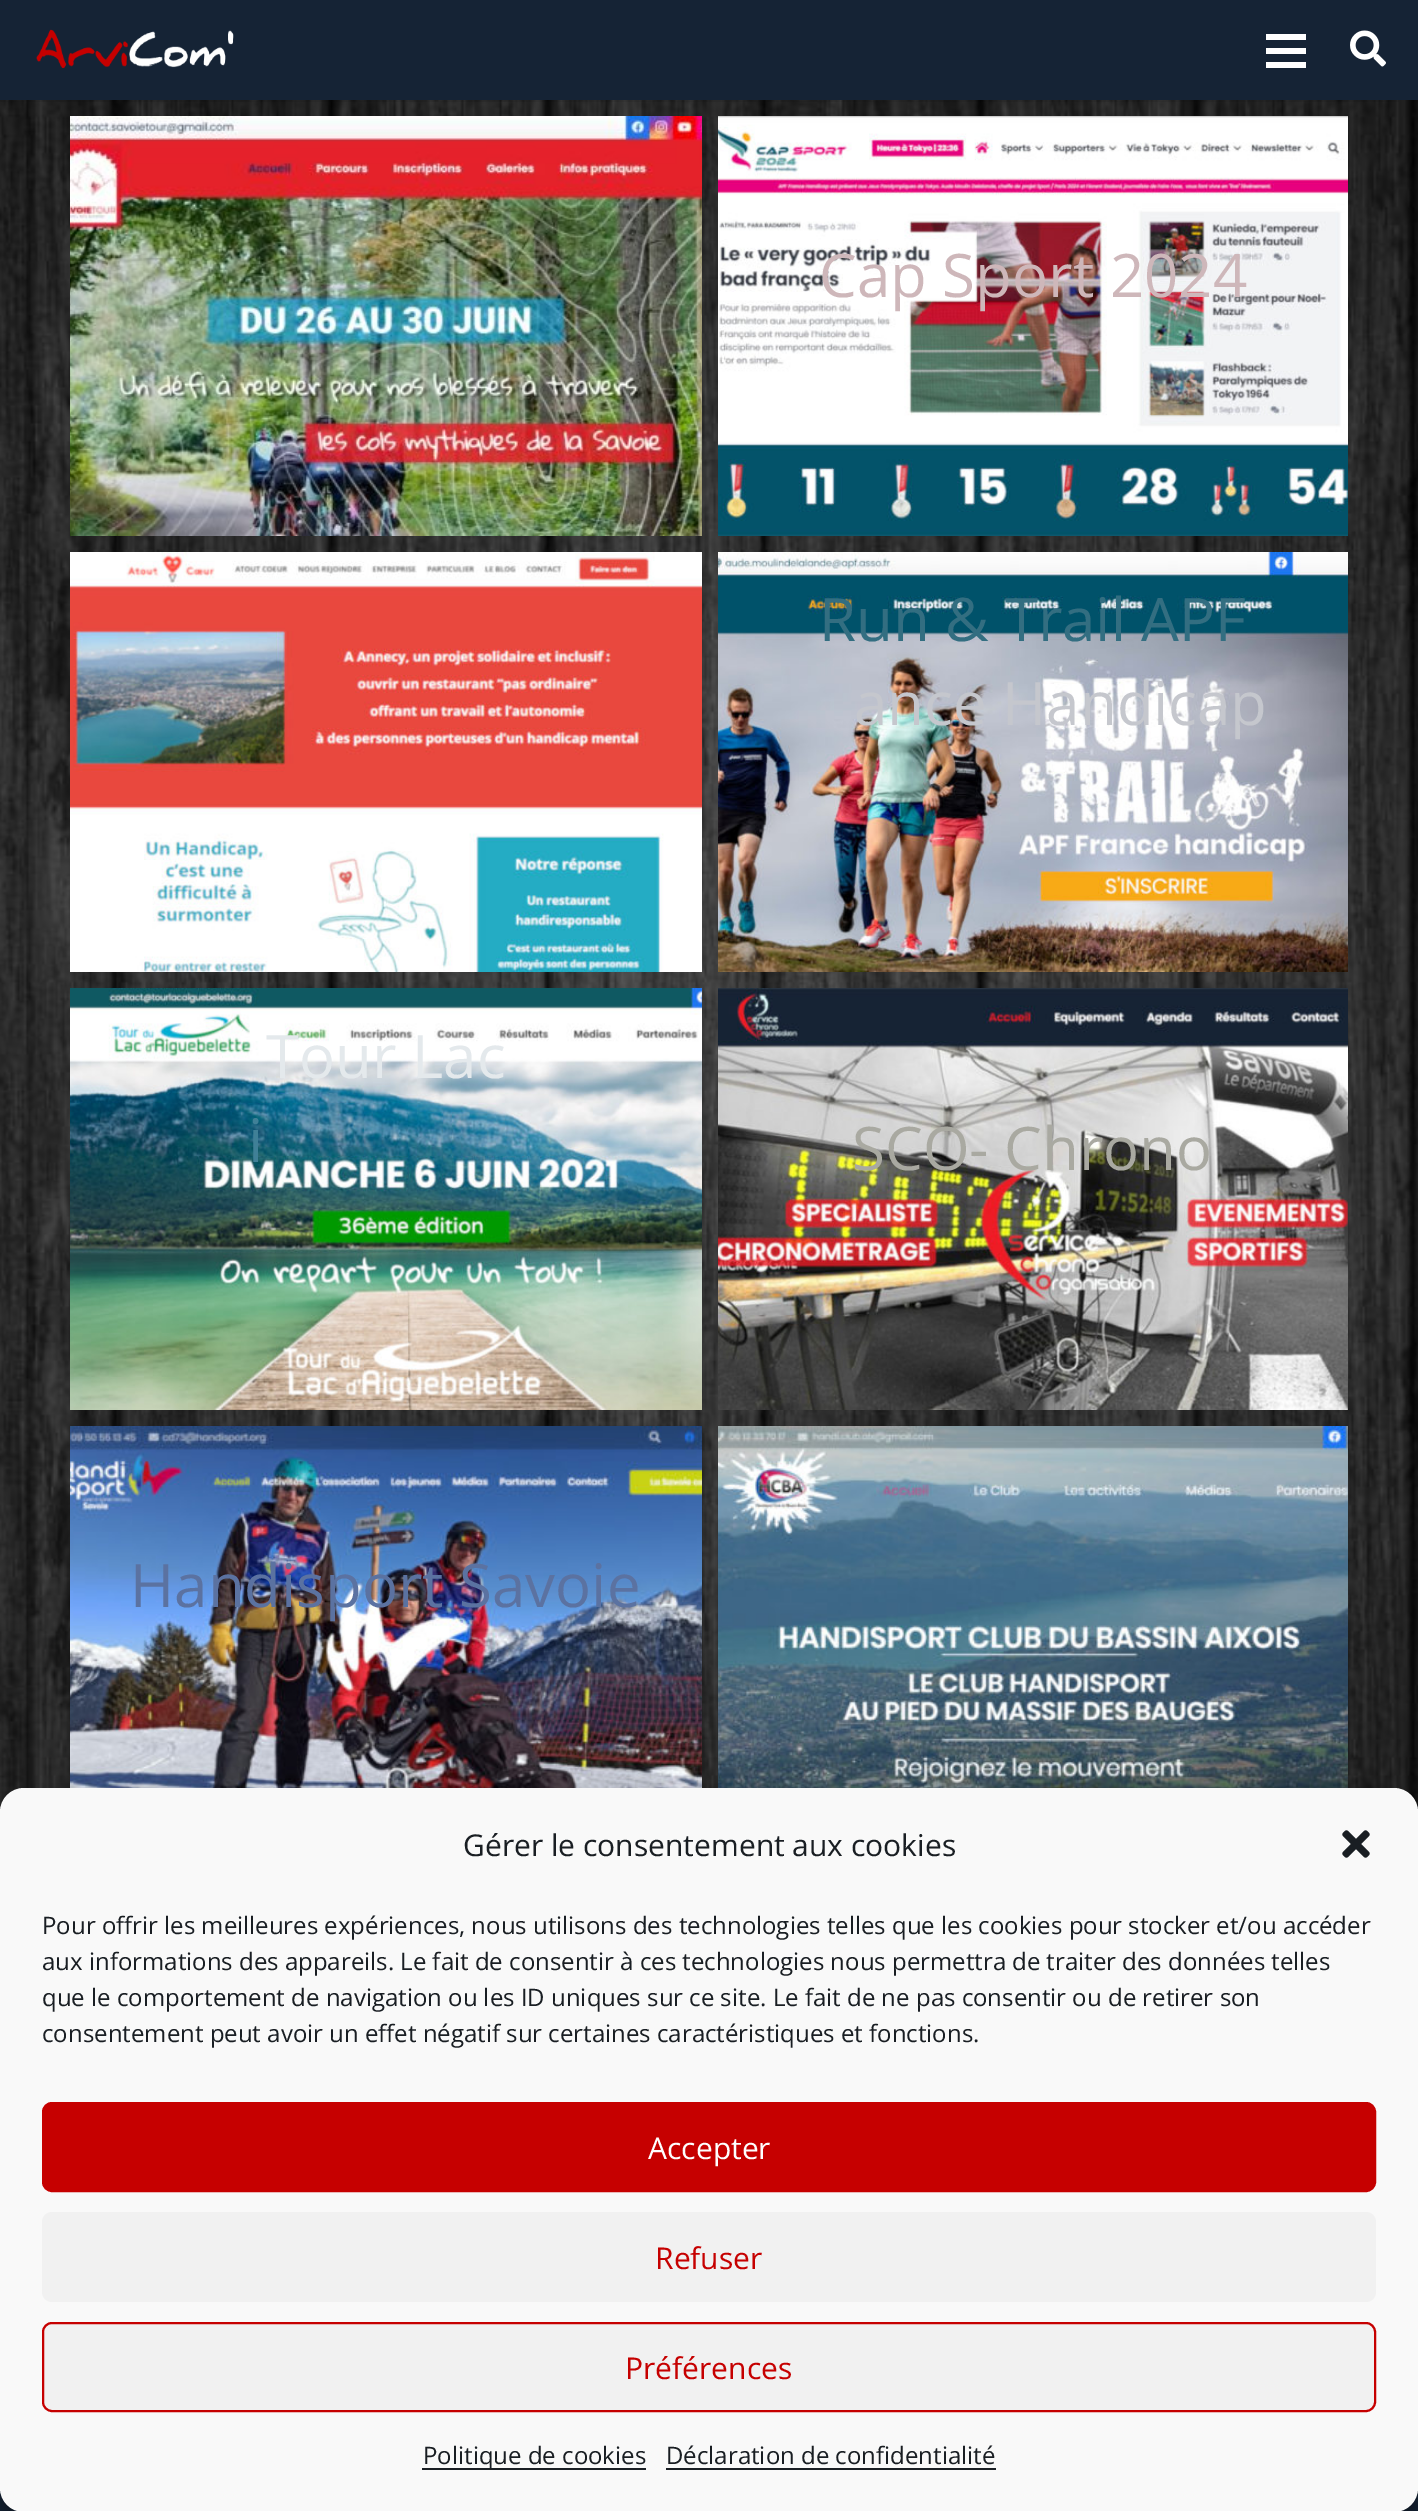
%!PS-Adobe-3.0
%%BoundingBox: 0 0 1418 2511
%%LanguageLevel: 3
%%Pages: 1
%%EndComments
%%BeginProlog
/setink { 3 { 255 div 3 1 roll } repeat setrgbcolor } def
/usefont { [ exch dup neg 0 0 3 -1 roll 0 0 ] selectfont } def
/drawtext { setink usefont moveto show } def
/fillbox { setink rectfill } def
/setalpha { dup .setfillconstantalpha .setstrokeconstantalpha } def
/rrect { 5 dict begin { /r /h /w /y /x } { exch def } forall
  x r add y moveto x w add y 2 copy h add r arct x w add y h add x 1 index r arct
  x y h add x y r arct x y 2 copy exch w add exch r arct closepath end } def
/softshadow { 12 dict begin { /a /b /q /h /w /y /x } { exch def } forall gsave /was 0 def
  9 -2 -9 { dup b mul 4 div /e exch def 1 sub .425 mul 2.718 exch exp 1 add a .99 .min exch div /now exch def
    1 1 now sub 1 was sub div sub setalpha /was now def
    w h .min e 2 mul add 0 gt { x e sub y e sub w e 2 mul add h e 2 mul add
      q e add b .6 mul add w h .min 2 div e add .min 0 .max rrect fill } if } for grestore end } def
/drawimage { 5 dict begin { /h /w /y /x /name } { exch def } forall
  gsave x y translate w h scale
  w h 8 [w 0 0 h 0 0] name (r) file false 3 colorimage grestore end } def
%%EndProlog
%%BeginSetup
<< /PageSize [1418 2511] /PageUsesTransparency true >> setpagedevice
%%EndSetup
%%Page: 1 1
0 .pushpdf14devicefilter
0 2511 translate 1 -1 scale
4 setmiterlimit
0 0 1418 2511 255 255 255 fillbox
(assets/img3.rgb) 0 100 1418 1712 drawimage
0.08 setalpha
0 100 1399 2 0 0 0 fillbox
1 setalpha
0 0 1418 100 21 35 53 fillbox
(assets/img1.rgb) 36 29 198 40 drawimage
1266 48 40 6 255 255 255 fillbox
1266 34 40 6 255 255 255 fillbox
1266 62 40 6 255 255 255 fillbox
(assets/img2.rgb) 1350 30 36 37 drawimage
(assets/img4.rgb) 70 116 632 420 drawimage
(assets/img5.rgb) 718 116 630 420 drawimage
(Cap Sport 2024) 819 297 /OpenSans-Regular 60 206 183 186 drawtext
(assets/img6.rgb) 70 552 632 420 drawimage
(assets/img7.rgb) 718 552 630 420 drawimage
(Run & Trail APF) 819 641 /OpenSans-Regular 60 51 110 129 drawtext
(ance Handicap) 854 725 /OpenSans-Regular 60 197 199 205 drawtext
(assets/img8.rgb) 70 988 632 422 drawimage
(Tour Lac) 266 1078 /OpenSans-Regular 60 228 233 236 drawtext
(i) 248 1162 /OpenSans-Regular 60 64 128 151 drawtext
(assets/img9.rgb) 718 988 630 422 drawimage
(SCO- Chrono) 852 1170 /OpenSans-Regular 60 169 169 161 drawtext
0 0 0 setink
70 1428 632 420 0 4 0.1 softshadow
70 1426 632 420 0 1 0.1 softshadow
(assets/img10.rgb) 70 1426 632 362 drawimage
(Handisport Savoie) 130 1607 /OpenSans-Regular 60 91 114 161 drawtext
0 0 0 setink
718 1428 630 420 0 4 0.1 softshadow
718 1426 630 420 0 1 0.1 softshadow
(assets/img11.rgb) 718 1426 630 362 drawimage
0 2488 1418 23 21 35 53 fillbox
0 0 0 setink
0 1800 1418 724 24 6 0.23 softshadow
0 1808 1418 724 24 20 0.19 softshadow
249 249 249 setink
1 1789 1416 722 23 rrect gsave fill grestore
2 setlinewidth
stroke
(Gérer le consentement aux cookies) 463 1856 /OpenSans-Regular 30 25 30 35 drawtext
(assets/img12.rgb) 1342 1830 28 28 drawimage
(Pour offrir les meilleures expériences, nous utilisons des technologies telles que les cookies pour stocker et/ou accéder) 42 1934 /OpenSans-Regular 24 25 30 35 drawtext
(aux informations des appareils. Le fait de consentir à ces technologies nous permettra de traiter des données telles) 42 1970 /OpenSans-Regular 24 25 30 35 drawtext
(que le comportement de navigation ou les ID uniques sur ce site. Le fait de ne pas consentir ou de retirer son) 42 2006 /OpenSans-Regular 24 25 30 35 drawtext
(consentement peut avoir un effet négatif sur certaines caractéristiques et fonctions.) 42 2042 /OpenSans-Regular 24 25 30 35 drawtext
198 0 0 setink
43 2103 1332 88 9 rrect gsave fill grestore
stroke
(Accepter) 648 2159 /OpenSans-Regular 30 255 255 255 drawtext
241 241 241 setink
42 2212 1334 90 10 rrect fill
(Refuser) 655 2269 /OpenSans-Regular 30 198 0 0 drawtext
241 241 241 setink
43 2323 1332 88 9 rrect gsave fill grestore
198 0 0 setink
stroke
(Préférences) 625 2379 /OpenSans-Regular 30 198 0 0 drawtext
422 2468 224 2 25 30 35 fillbox
(Politique de cookies) 423 2464 /OpenSans-Regular 24 25 30 35 drawtext
(Déclaration de confidentialité) 666 2464 /OpenSans-Regular 24 25 30 35 drawtext
666 2468 330 2 25 30 35 fillbox
.poppdf14devicefilter showpage
%%EOF
